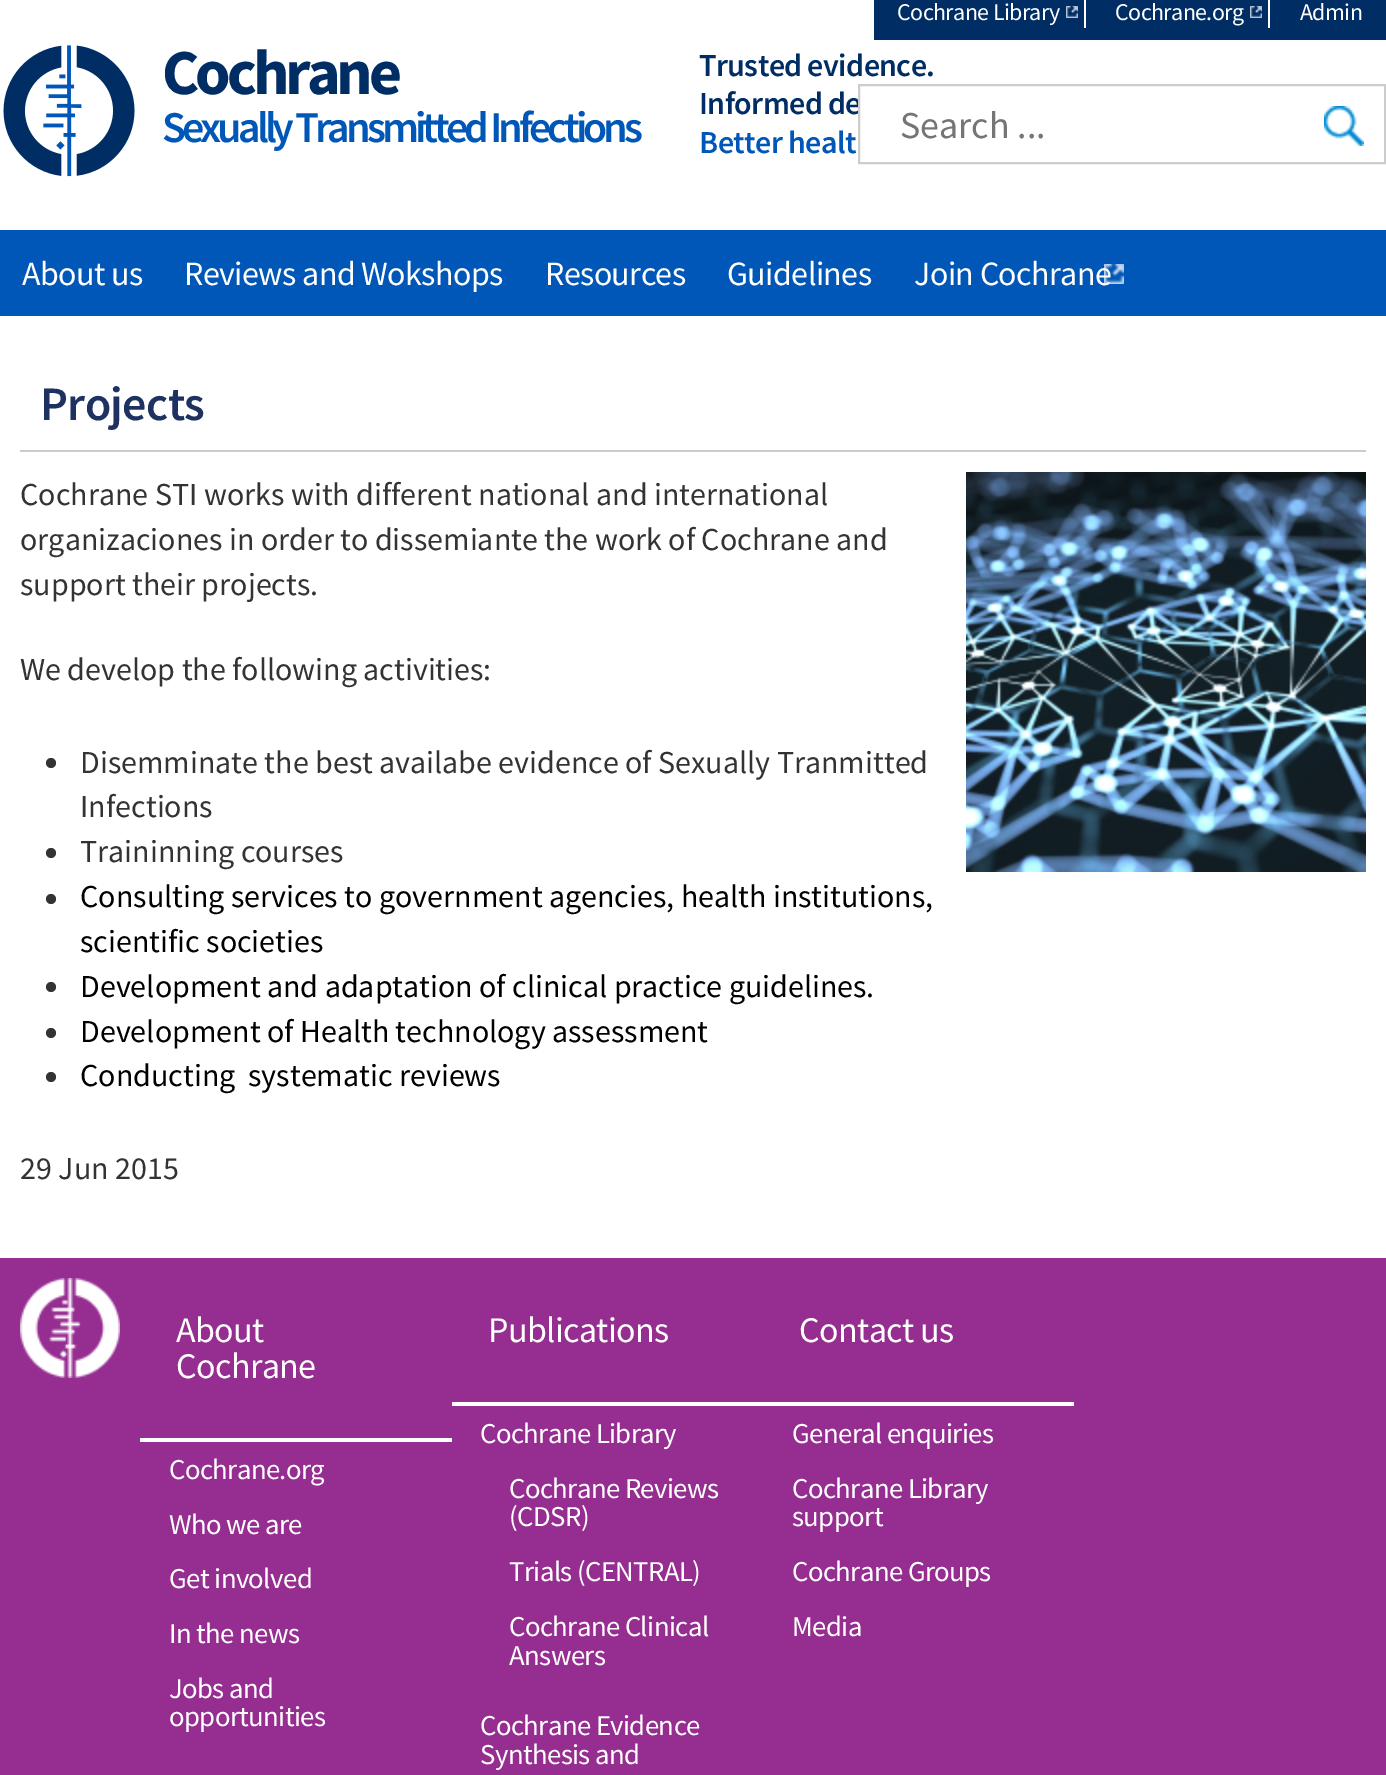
%!PS-Adobe-3.0
%%BoundingBox: 0 0 1386 1775
%%LanguageLevel: 3
%%Pages: 1
%%EndComments
%%BeginProlog
/setink { 3 { 255 div 3 1 roll } repeat setrgbcolor } def
/usefont { [ exch dup neg 0 0 3 -1 roll 0 0 ] selectfont } def
/drawtext { setink usefont moveto show } def
/fillbox { setink rectfill } def
/disc { newpath 0 360 arc closepath } def
/drawimage { 5 dict begin { /h /w /y /x /name } { exch def } forall
  gsave x y translate w h scale
  w h 8 [w 0 0 h 0 0] name (r) file false 3 colorimage grestore end } def
%%EndProlog
%%BeginSetup
<< /PageSize [1386 1775] >> setpagedevice
%%EndSetup
%%Page: 1 1
0 1775 translate 1 -1 scale
4 setmiterlimit
0 0 1386 1775 255 255 255 fillbox
874 0 512 40 0 45 100 fillbox
(assets/img1.rgb) 1066 6 12 12 drawimage
1084 0 2 28 255 255 255 fillbox
/SourceSansPro-Regular 24 usefont
897 20 moveto -0.6 0 (Cochrane Library) ashow
(assets/img2.rgb) 1250 6 12 12 drawimage
1268 0 2 28 255 255 255 fillbox
1115 20 moveto -0.6 0 (Cochrane.org) ashow
1300 20 moveto -0.6 0 (Admin) ashow
(assets/img3.rgb) 3 45 132 132 drawimage
/SourceSansPro-Bold 64 usefont
0 45 100 setink
162 94 moveto -4 0 (Cochrane) ashow
/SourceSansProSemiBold-SemiBold 44 usefont
0 87 183 setink
162 142 moveto -4 0 (Sexually Transmitted Infections) ashow
/SourceSansProSemiBold-SemiBold 32 usefont
0 45 100 setink
699 76 moveto -0.6 0 (Trusted evidence.) ashow
699 114 moveto -0.6 0 (Informed de) ashow
0 87 183 setink
699 153 moveto -0.6 0 (Better healt) ashow
860 103 1 5 255 255 255 fillbox
204 204 204 setink
2 setlinewidth
859 85 526 78 rectstroke
(Search ...) 900 138 /SourceSansPro-Regular 38 117 117 117 drawtext
(assets/img4.rgb) 1324 106 40 40 drawimage
0 230 1386 86 0 87 183 fillbox
/SourceSansPro-Regular 34 usefont
255 255 255 setink
22 285 moveto -0.6 0 (About us) ashow
184 285 moveto -0.6 0 (Reviews and Wokshops) ashow
545 285 moveto -0.6 0 (Resources) ashow
727 285 moveto -0.6 0 (Guidelines) ashow
(assets/img5.rgb) 1104 264 20 20 drawimage
914 285 moveto -0.6 0 (Join Cochrane) ashow
/SourceSansProSemiBold-SemiBold 48 usefont
30 50 98 setink
40 420 moveto -0.6 0 (Projects) ashow
20 450 1346 2 204 204 204 fillbox
(Cochrane STI works with different national and international) 20 505 /SourceSansPro-Regular 32 51 51 51 drawtext
(organizaciones in order to dissemiante the work of Cochrane and) 20 550 /SourceSansPro-Regular 32 51 51 51 drawtext
(support their projects.) 20 595 /SourceSansPro-Regular 32 51 51 51 drawtext
(We develop the following activities:) 20 680 /SourceSansPro-Regular 32 51 51 51 drawtext
51 763 5 disc fill
(Disemminate the best availabe evidence of Sexually Tranmitted) 80 773 /SourceSansPro-Regular 32 51 51 51 drawtext
(Infections) 80 817 /SourceSansPro-Regular 32 51 51 51 drawtext
51 853 5 disc fill
(Traininning courses) 80 862 /SourceSansPro-Regular 32 51 51 51 drawtext
51 899 5 disc fill
(Consulting services to government agencies, health institutions,) 80 907 /SourceSansPro-Regular 32 0 0 0 drawtext
(scientific societies) 80 952 /SourceSansPro-Regular 32 0 0 0 drawtext
51 51 51 setink
51 987 5 disc fill
(Development and adaptation of clinical practice guidelines.) 80 997 /SourceSansPro-Regular 32 0 0 0 drawtext
51 51 51 setink
51 1033 5 disc fill
(Development of Health technology assessment) 80 1042 /SourceSansPro-Regular 32 0 0 0 drawtext
51 51 51 setink
51 1077 5 disc fill
(Conducting  systematic reviews) 80 1086 /SourceSansPro-Regular 32 0 0 0 drawtext
(assets/img6.rgb) 966 472 400 400 drawimage
(29 Jun 2015) 20 1179 /SourceSansPro-Regular 32 51 51 51 drawtext
0 1258 1386 517 150 45 145 fillbox
(assets/img7.rgb) 20 1278 100 100 drawimage
/SourceSansPro-Regular 36 usefont
255 255 255 setink
176 1342 moveto -0.6 0 (About) ashow
176 1378 moveto -0.6 0 (Cochrane) ashow
140 1438 312 4 255 255 255 fillbox
/SourceSansPro-Regular 28.75 usefont
169 1479 moveto -0.6 0 (Cochrane.org) ashow
169 1534 moveto -0.6 0 (Who we are) ashow
169 1588 moveto -0.6 0 (Get involved) ashow
169 1643 moveto -0.6 0 (In the news) ashow
169 1698 moveto -0.6 0 (Jobs and) ashow
169 1726 moveto -0.6 0 (opportunities) ashow
/SourceSansPro-Regular 36 usefont
488 1342 moveto -0.6 0 (Publications) ashow
452 1402 622 4 255 255 255 fillbox
/SourceSansPro-Regular 28.75 usefont
480 1443 moveto -0.6 0 (Cochrane Library) ashow
509 1498 moveto -0.6 0 (Cochrane Reviews) ashow
509 1526 moveto -0.6 0 (\(CDSR\)) ashow
509 1581 moveto -0.6 0 (Trials \(CENTRAL\)) ashow
509 1636 moveto -0.6 0 (Cochrane Clinical) ashow
509 1665 moveto -0.6 0 (Answers) ashow
480 1735 moveto -0.6 0 (Cochrane Evidence) ashow
480 1764 moveto -0.6 0 (Synthesis and) ashow
/SourceSansPro-Regular 36 usefont
799 1342 moveto -0.6 0 (Contact us) ashow
/SourceSansPro-Regular 28.75 usefont
792 1443 moveto -0.6 0 (General enquiries) ashow
792 1498 moveto -0.6 0 (Cochrane Library) ashow
792 1526 moveto -0.6 0 (support) ashow
792 1581 moveto -0.6 0 (Cochrane Groups) ashow
792 1636 moveto -0.6 0 (Media) ashow
showpage
%%EOF
